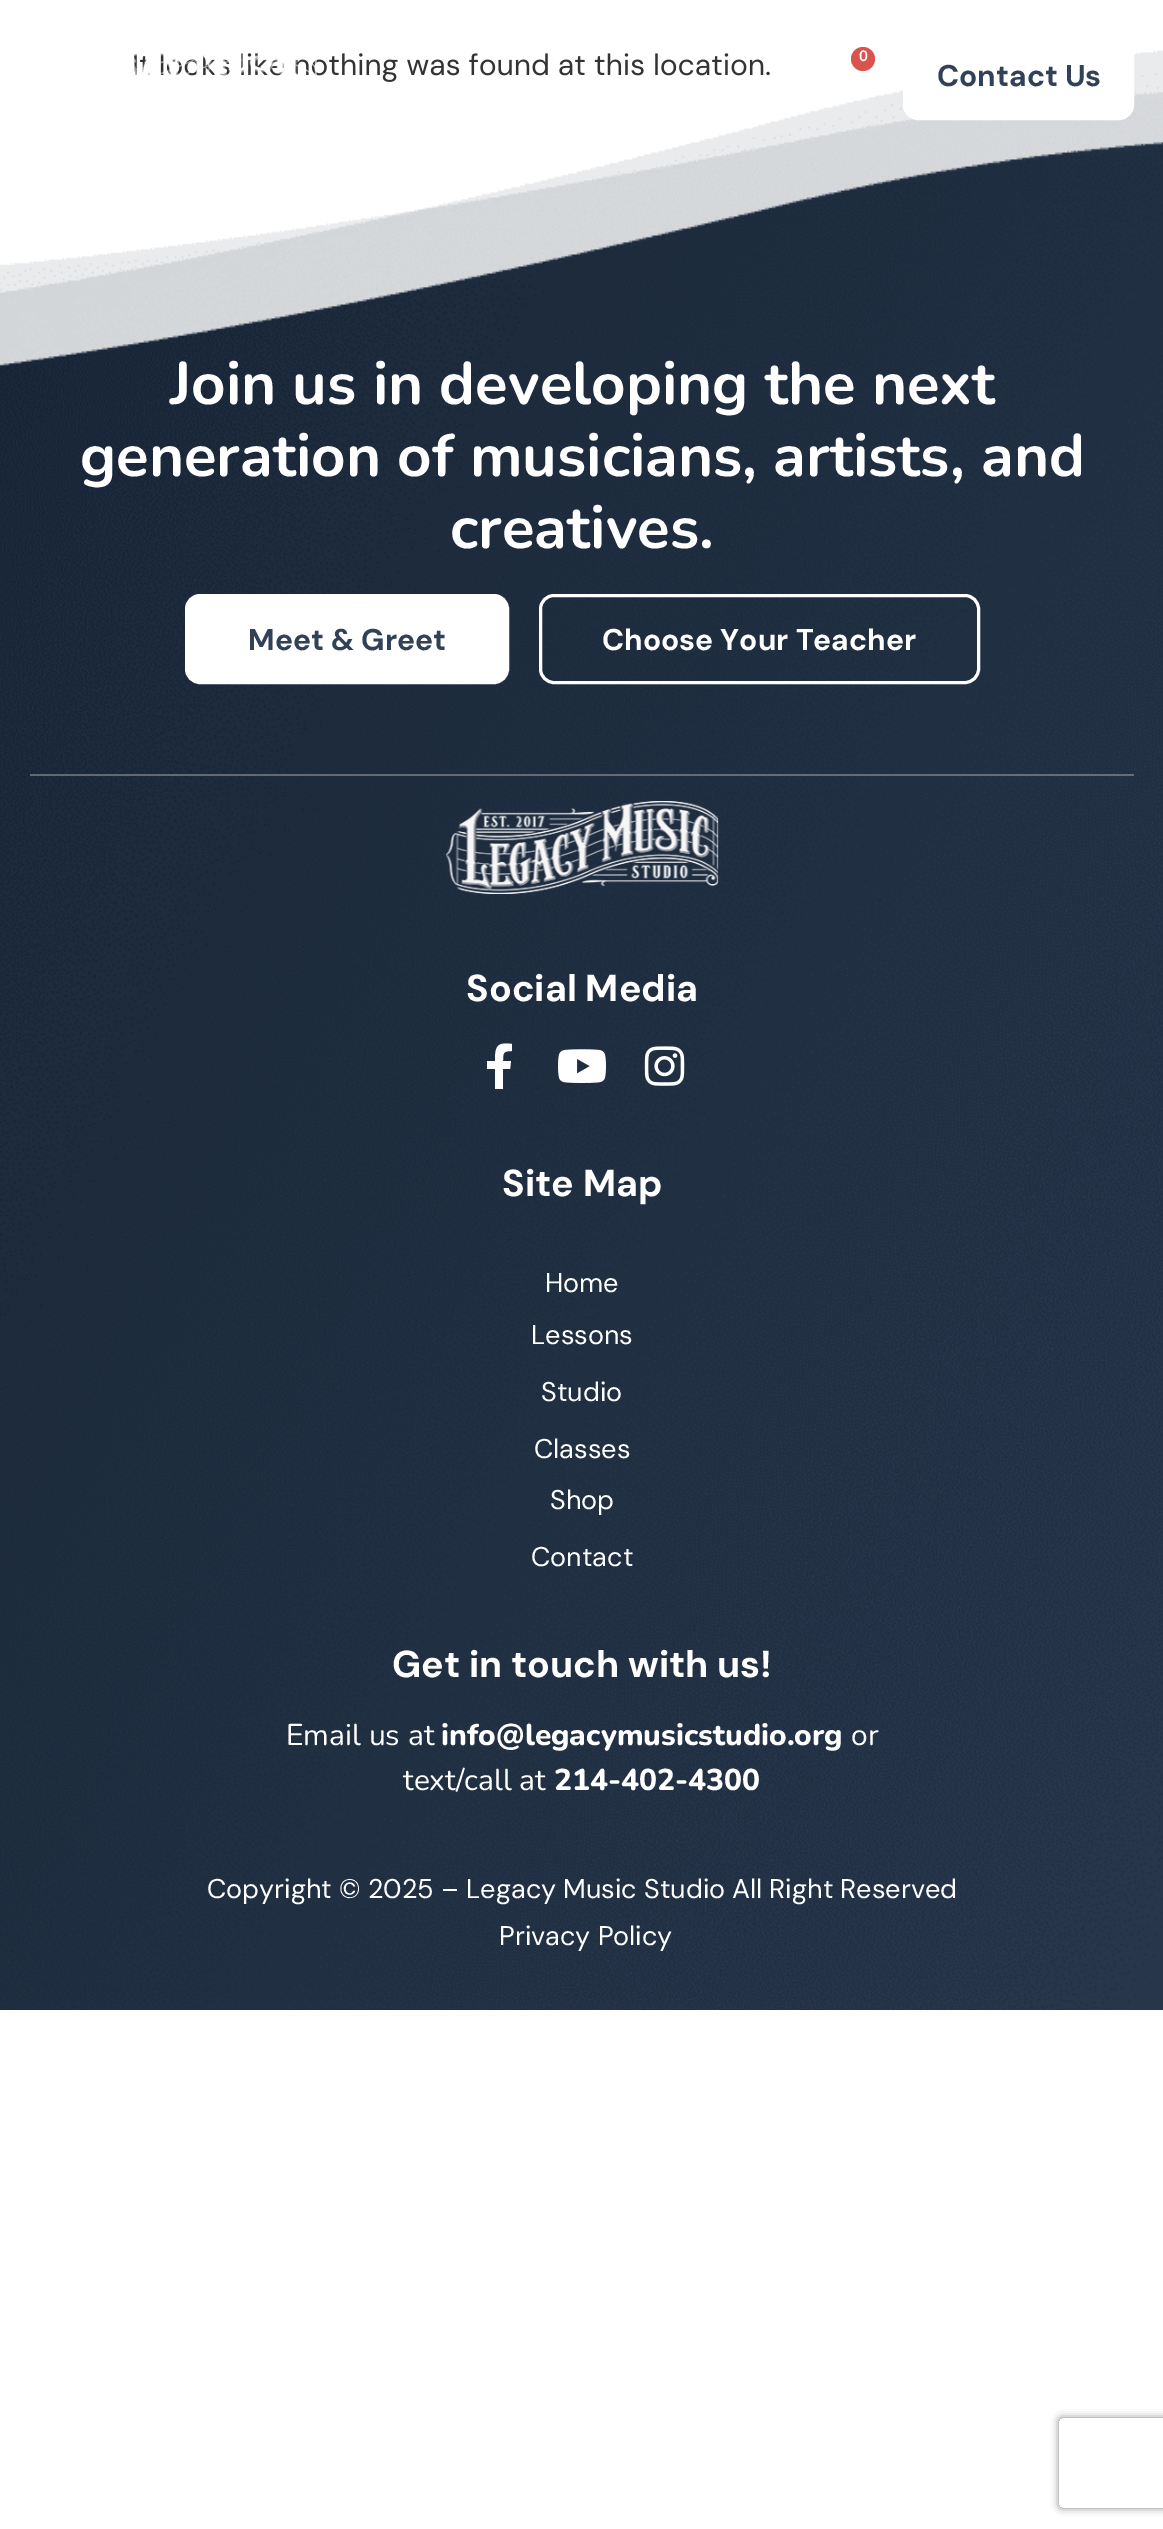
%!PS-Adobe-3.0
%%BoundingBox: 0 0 1163 2529
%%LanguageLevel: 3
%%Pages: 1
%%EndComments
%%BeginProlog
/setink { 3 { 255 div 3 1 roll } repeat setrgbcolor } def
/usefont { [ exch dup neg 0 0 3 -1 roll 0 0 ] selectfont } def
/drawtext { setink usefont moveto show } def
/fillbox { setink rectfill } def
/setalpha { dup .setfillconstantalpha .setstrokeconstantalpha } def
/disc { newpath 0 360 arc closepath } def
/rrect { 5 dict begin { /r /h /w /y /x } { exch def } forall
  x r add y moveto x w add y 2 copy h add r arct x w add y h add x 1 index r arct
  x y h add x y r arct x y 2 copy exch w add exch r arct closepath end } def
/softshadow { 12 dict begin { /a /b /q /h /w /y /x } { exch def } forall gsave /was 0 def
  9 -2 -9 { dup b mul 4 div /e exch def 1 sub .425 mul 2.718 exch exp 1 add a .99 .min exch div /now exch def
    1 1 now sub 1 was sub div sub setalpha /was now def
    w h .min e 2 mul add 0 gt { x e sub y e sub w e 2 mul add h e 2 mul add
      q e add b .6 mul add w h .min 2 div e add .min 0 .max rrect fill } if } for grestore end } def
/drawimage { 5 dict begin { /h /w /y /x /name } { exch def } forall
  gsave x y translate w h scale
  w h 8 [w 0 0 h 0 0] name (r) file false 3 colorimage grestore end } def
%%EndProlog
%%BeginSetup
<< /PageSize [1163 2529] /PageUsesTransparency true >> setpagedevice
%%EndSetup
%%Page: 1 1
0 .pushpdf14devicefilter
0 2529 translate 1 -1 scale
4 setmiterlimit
0 0 1163 2529 255 255 255 fillbox
(It looks like nothing was found at this location.) 132 75 /DMSans-Regular 30 51 51 51 drawtext
(assets/img2.rgb) 0 50 1163 1960 drawimage
(assets/img1.rgb) 134 53 183 23 drawimage
217 83 79 setink
863 59 12 disc fill
(0) 859 61 /Nunito-Bold 15 255 255 255 drawtext
904.5 31.5 228 87 13.5 rrect gsave fill grestore
3 setlinewidth
stroke
(Contact Us) 937 86 /DMSans-Bold 30 49 66 88 drawtext
(Join us in developing the next) 170 404 /Nunito-Bold 60 255 255 255 drawtext
(generation of musicians, artists, and) 80 476 /Nunito-Bold 60 255 255 255 drawtext
(creatives.) 450 548 /Nunito-Bold 60 255 255 255 drawtext
186.5 595.5 321 87 13.5 rrect gsave fill grestore
stroke
(Meet & Greet) 248 650 /DMSans-Bold 30 49 66 88 drawtext
255 255 255 setink
540.5 595.5 438 87 13.5 rrect stroke
(Choose Your Teacher) 602 650 /DMSans-Bold 30 255 255 255 drawtext
0.48 setalpha
30 774 1104 2 175 175 175 fillbox
1 setalpha
(assets/img3.rgb) 446 801 273 93 drawimage
(Social Media) 466 1001 /DMSans-Bold 37.5 255 255 255 drawtext
510 1069 moveto 503 1069 lineto 503 1089 lineto 495 1089 lineto 495 1069 lineto 487 1069 lineto 487 1061 lineto 495 1061 lineto 495 1046 497 1042 512 1044 curveto 512 1051 lineto 503 1051 503 1053 503 1061 curveto 511 1061 lineto closepath fill
(assets/img4.rgb) 558 1049 48 34 drawimage
(assets/img5.rgb) 644 1046 41 40 drawimage
(Site Map) 502 1196 /DMSans-Bold 37.5 255 255 255 drawtext
(Home) 545 1292 /DMSans-Regular 27 255 255 255 drawtext
(Lessons) 531 1344 /DMSans-Regular 27 255 255 255 drawtext
(Studio) 541 1401 /DMSans-Regular 27 255 255 255 drawtext
(Classes) 534 1458 /DMSans-Regular 27 255 255 255 drawtext
(Shop) 550 1509 /DMSans-Regular 27 255 255 255 drawtext
(Contact) 531 1566 /DMSans-Regular 27 255 255 255 drawtext
(Get in touch with us!) 392 1677 /DMSans-Bold 37.5 255 255 255 drawtext
(Email us at) 286 1745 /Nunito-Regular 30 255 255 255 drawtext
(info@legacymusicstudio.org) 441 1745 /Nunito-ExtraBold 30 255 255 255 drawtext
(or) 851 1745 /Nunito-Regular 30 255 255 255 drawtext
(text/call at) 403 1790 /Nunito-Regular 30 255 255 255 drawtext
(214-402-4300) 554 1790 /Nunito-ExtraBold 30 255 255 255 drawtext
(Copyright © 2025 – Legacy Music Studio All Right Reserved) 207 1898 /DMSans-Regular 27 255 255 255 drawtext
(Privacy Policy) 499 1945 /DMSans-Regular 27 255 255 255 drawtext
gsave
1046 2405 moveto 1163 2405 lineto 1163 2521 lineto 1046 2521 lineto closepath 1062 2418 moveto 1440 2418 lineto 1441.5 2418 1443 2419.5 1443 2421 curveto 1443 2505 lineto 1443 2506.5 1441.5 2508 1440 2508 curveto 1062 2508 lineto 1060.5 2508 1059 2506.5 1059 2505 curveto 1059 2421 lineto 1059 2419.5 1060.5 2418 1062 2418 curveto closepath eoclip newpath
128 128 128 setink
1059 2418 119 90 3 4 1 softshadow
grestore
.poppdf14devicefilter showpage
%%EOF
